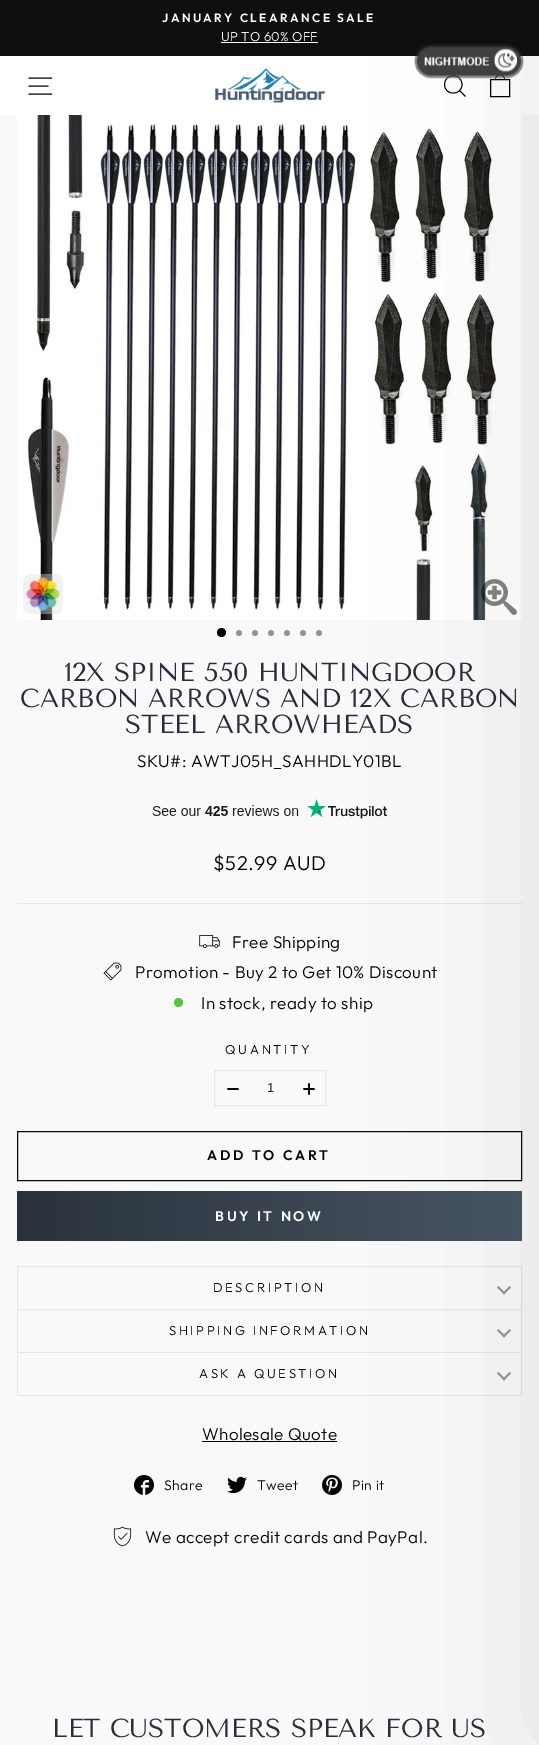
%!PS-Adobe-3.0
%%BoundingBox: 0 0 539 1745
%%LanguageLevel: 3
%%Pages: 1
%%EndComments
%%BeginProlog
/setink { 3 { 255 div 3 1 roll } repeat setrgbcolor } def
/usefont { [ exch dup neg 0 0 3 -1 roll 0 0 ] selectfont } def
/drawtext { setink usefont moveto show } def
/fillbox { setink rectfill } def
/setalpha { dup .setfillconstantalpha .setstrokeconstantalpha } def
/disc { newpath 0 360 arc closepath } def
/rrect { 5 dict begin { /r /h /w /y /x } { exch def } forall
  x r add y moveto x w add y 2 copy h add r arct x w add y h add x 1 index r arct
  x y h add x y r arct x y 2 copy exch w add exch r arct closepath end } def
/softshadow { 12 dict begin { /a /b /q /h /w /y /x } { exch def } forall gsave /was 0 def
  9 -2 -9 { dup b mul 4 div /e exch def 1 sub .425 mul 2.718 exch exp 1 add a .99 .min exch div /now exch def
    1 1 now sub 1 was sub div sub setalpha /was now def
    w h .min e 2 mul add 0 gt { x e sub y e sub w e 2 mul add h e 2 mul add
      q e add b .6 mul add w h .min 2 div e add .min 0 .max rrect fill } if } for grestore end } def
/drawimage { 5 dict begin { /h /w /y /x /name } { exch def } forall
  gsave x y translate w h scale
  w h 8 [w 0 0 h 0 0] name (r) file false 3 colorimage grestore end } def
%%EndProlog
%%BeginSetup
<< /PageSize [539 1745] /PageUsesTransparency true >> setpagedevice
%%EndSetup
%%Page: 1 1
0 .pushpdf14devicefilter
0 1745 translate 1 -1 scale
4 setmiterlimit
0 0 539 1745 249 249 249 fillbox
0 56 539 59 255 255 255 fillbox
0 0 539 56 15 15 15 fillbox
/Outfit-SemiBold 12 usefont
255 255 255 setink
162 22 moveto 2.4 0 (JANUARY CLEARANCE SALE) ashow
/Outfit-Light 13 usefont
221 41 moveto 0.3 0 (UP TO 60% OFF) ashow
221 42 97 1 255 255 255 fillbox
0 0 0 setink
0.9 setlinewidth
28.5 78 moveto 52 78 lineto 28.5 86 moveto 48.5 86 lineto 28.5 94 moveto 52 94 lineto stroke
(assets/img1.rgb) 214 68 111 35 drawimage
462 84.5 moveto 462 96 444.5 96 444.5 84.5 curveto 444.5 73 462 73 462 84.5 curveto closepath 465.5 96.5 moveto 459.5 90.5 lineto stroke
490.5 79.5 moveto 509.5 79.5 lineto 509.5 96.5 lineto 490.5 96.5 lineto closepath 495.5 79.5 moveto 495.5 73.5 504.5 73.5 504.5 79.5 curveto stroke
(assets/img3.rgb) 17 115 505 505 drawimage
(assets/img5.rgb) 481 579 36 36 drawimage
149 149 149 setink
319 633 3 disc fill
(assets/img6.rgb) 152 799 235 20 drawimage
17 903 505 1 232 232 225 fillbox
1 setlinewidth
214.5 1070.5 111 35 rectstroke
(assets/img10.rgb) 303 1083 12 12 drawimage
9 9 9 setink
17.5 1131.5 504 49 rectstroke
gsave 17 1191 moveto 522 1191 lineto 522 1241 lineto 17 1241 lineto closepath clip newpath
<< /ShadingType 2 /ColorSpace /DeviceRGB /Coords [17 1216 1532 1216] /Extend [true true] /Function << /FunctionType 3 /Domain [0 1] /Functions [<< /FunctionType 2 /Domain [0 1] /C0 [0.161 0.196 0.235] /C1 [0.282 0.333 0.388] /N 1 >> << /FunctionType 2 /Domain [0 1] /C0 [0.282 0.333 0.388] /C1 [0.169 0.345 0.463] /N 1 >> << /FunctionType 2 /Domain [0 1] /C0 [0.169 0.345 0.463] /C1 [0.306 0.263 0.463] /N 1 >>] /Bounds [0.33 0.67] /Encode [0 1 0 1 0 1] >> >> shfill grestore
232 232 225 setink
17.5 1266.5 504 43 rectstroke
153 153 153 setink
511 1287.5 moveto 504 1294.5 lineto 502.5 1293 lineto 509.5 1286 lineto closepath fill
505.5 1293 moveto 504 1294.5 lineto 497 1287.5 lineto 498.5 1286 lineto closepath fill
521 1310 1 86 232 232 225 fillbox
17 1352 505 1 232 232 225 fillbox
153 153 153 setink
511 1330.5 moveto 504 1337.5 lineto 502.5 1336 lineto 509.5 1329 lineto closepath fill
505.5 1336 moveto 504 1337.5 lineto 497 1330.5 lineto 498.5 1329 lineto closepath fill
17 1395 505 1 232 232 225 fillbox
153 153 153 setink
511 1373.5 moveto 504 1380.5 lineto 502.5 1379 lineto 509.5 1372 lineto closepath fill
505.5 1379 moveto 504 1380.5 lineto 497 1373.5 lineto 498.5 1372 lineto closepath fill
202 1441 135 1 0 0 0 fillbox
(assets/img13.rgb) 322 1475 20 20 drawimage
539 0 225 1745 0 75 0.1 softshadow
(assets/img2.rgb) 414 44 110 35 drawimage
(assets/img4.rgb) 23 574 40 41 drawimage
221.5 632.5 4.5 disc fill
149 149 149 setink
239 633 3 disc fill
255 633 3 disc fill
271 633 3 disc fill
287 633 3 disc fill
303 633 3 disc fill
(12X SPINE 550 HUNTINGDOOR) 64 681 /TenorSans-Regular 26 46 42 57 drawtext
(CARBON ARROWS AND 12X CARBON) 20 707 /TenorSans-Regular 26 46 42 57 drawtext
(STEEL ARROWHEADS) 125 733 /TenorSans-Regular 26 46 42 57 drawtext
/Outfit-Light 17 usefont
0 0 0 setink
137 767 moveto 0.4 0 (SKU#: AWTJ05H_SAHHDLY01BL) ashow
/Outfit-Light 20 usefont
213 870 moveto 0.5 0 ($52.99 AUD) ashow
(assets/img7.rgb) 199 935 21 13 drawimage
/Outfit-Light 17 usefont
232 948 moveto 0.4 0 (Free Shipping) ashow
(assets/img8.rgb) 103 962 19 19 drawimage
135 978 moveto 0.4 0 (Promotion - Buy 2 to Get 10% Discount) ashow
84 198 58 setink
178.5 1002.5 4.5 disc fill
0 0 0 setink
201 1009 moveto 0.4 0 (In stock, ready to ship) ashow
/Outfit-Light 13 usefont
225 1054 moveto 2.75 0 (QUANTITY) ashow
(assets/img9.rgb) 227 1088 12 2 drawimage
(1) 267 1092 /LiberationSans-Regular 13 37 37 37 drawtext
/Outfit-SemiBold 14 usefont
9 9 9 setink
207 1160 moveto 2.75 0 (ADD TO CART) ashow
255 255 255 setink
215 1221 moveto 2.75 0 (BUY IT NOW) ashow
/Outfit-Light 13 usefont
0 0 0 setink
213 1292 moveto 2.6 0 (DESCRIPTION) ashow
17 1310 1 43 232 232 225 fillbox
0 0 0 setink
169 1335 moveto 2.6 0 (SHIPPING INFORMATION) ashow
17 1353 1 43 232 232 225 fillbox
0 0 0 setink
199 1378 moveto 2.6 0 (ASK A QUESTION) ashow
/Outfit-Light 17 usefont
202 1440 moveto 0.4 0 (Wholesale Quote) ashow
(assets/img11.rgb) 134 1475 20 20 drawimage
/Outfit-Light 14 usefont
164 1490 moveto 0.4 0 (Share) ashow
(assets/img12.rgb) 227 1476 20 18 drawimage
257 1490 moveto 0.4 0 (Tweet) ashow
352 1490 moveto 0.4 0 (Pin it) ashow
(assets/img14.rgb) 113 1526 19 21 drawimage
/Outfit-Light 17 usefont
145 1543 moveto 0.4 0 (We accept credit cards and PayPal.) ashow
(LET CUSTOMERS SPEAK FOR US) 52 1737 /TenorSans-Regular 26 46 42 57 drawtext
.poppdf14devicefilter showpage
%%EOF
